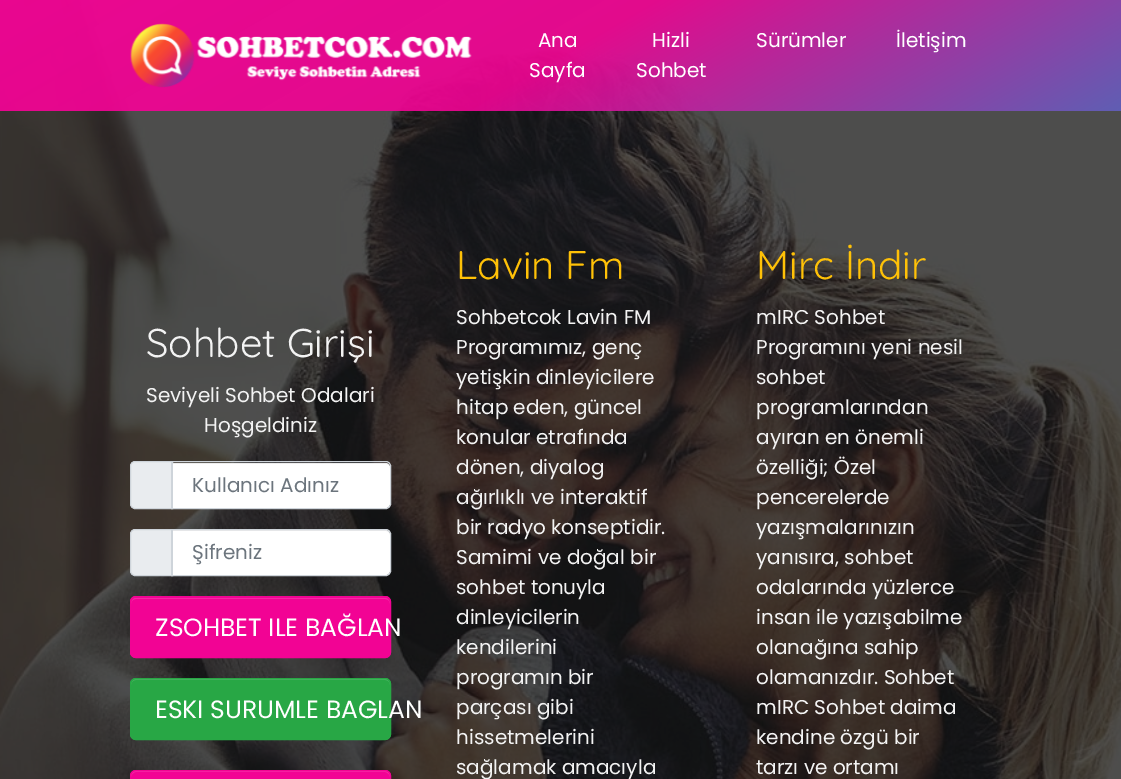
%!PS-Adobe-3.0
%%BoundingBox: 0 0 1121 779
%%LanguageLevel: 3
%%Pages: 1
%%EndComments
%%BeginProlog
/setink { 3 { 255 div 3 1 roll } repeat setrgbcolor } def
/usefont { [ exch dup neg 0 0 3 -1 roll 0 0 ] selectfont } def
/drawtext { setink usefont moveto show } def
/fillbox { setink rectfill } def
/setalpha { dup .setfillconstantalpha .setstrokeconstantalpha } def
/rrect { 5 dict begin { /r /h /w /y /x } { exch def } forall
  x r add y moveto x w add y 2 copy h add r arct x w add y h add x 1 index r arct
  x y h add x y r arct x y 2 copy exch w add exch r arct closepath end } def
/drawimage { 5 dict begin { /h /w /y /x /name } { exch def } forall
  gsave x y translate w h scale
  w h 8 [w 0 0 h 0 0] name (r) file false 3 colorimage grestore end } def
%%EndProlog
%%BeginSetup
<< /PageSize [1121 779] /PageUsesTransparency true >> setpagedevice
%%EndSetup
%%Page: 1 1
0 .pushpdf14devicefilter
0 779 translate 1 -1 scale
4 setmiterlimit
0 0 1121 779 255 255 255 fillbox
(assets/img2.rgb) 0 0 1121 779 drawimage
(assets/img1.rgb) 130 23 342 65 drawimage
(Ana) 538 47 /Poppins-Regular 20 255 255 255 drawtext
(Sayfa) 529 77 /Poppins-Regular 20 255 255 255 drawtext
(Hizli) 652 47 /Poppins-Regular 20 255 255 255 drawtext
(Sohbet) 636 77 /Poppins-Regular 20 255 255 255 drawtext
(Sürümler) 756 47 /Poppins-Regular 20 255 255 255 drawtext
(İletişim) 896 47 /Poppins-Regular 20 255 255 255 drawtext
(Sohbet Girişi) 146 357 /Quicksand-Regular 40 243 243 243 drawtext
(Seviyeli Sohbet Odalari) 146 402 /Poppins-Regular 20 243 243 243 drawtext
(Hoşgeldiniz) 204 432 /Poppins-Regular 20 243 243 243 drawtext
233 236 239 setink
135 461.5 moveto 172.5 461.5 lineto 172.5 508.5 lineto 135 508.5 lineto 132.5 508.5 130.5 506.5 130.5 504 curveto 130.5 466 lineto 130.5 463.5 132.5 461.5 135 461.5 curveto closepath gsave fill grestore
206 212 218 setink
stroke
255 255 255 setink
173 463 moveto 386 463 lineto 388 463 390 465 390 467 curveto 390 504 lineto 390 506 388 508 386 508 curveto 173 508 lineto closepath fill
0.07 setalpha
0 0 0 setink
173 463 moveto 173 464 lineto 386 464 lineto 388 464 390 465 390 468 curveto 390 465 389 463 386 463 curveto closepath fill
1 setalpha
206 212 218 setink
171.5 461.5 moveto 386 461.5 lineto 388.5 461.5 390.5 463.5 390.5 466 curveto 390.5 504 lineto 390.5 506.5 388.5 508.5 386 508.5 curveto 171.5 508.5 lineto closepath stroke
(Kullanıcı Adınız) 192 492 /Poppins-Regular 20 108 117 125 drawtext
233 236 239 setink
135 529.5 moveto 172.5 529.5 lineto 172.5 575.5 lineto 135 575.5 lineto 132.5 575.5 130.5 573.5 130.5 571 curveto 130.5 534 lineto 130.5 531.5 132.5 529.5 135 529.5 curveto closepath gsave fill grestore
206 212 218 setink
stroke
255 255 255 setink
173 530 moveto 386 530 lineto 388 530 390 532 390 534 curveto 390 571 lineto 390 573 388 575 386 575 curveto 173 575 lineto closepath fill
0.07 setalpha
0 0 0 setink
173 530 moveto 173 531 lineto 386 531 lineto 388 531 390 533 390 535 curveto 390 532 389 530 386 530 curveto closepath fill
1 setalpha
206 212 218 setink
171.5 529.5 moveto 386 529.5 lineto 388.5 529.5 390.5 531.5 390.5 534 curveto 390.5 571 lineto 390.5 573.5 388.5 575.5 386 575.5 curveto 171.5 575.5 lineto closepath stroke
(Şifreniz) 192 559 /Poppins-Regular 20 108 117 125 drawtext
242 3 148 setink
130 596 261 62 6 rrect fill
244 41 164 setink
136 599 moveto 385 599 lineto 388 599 390 601 390 604 curveto 390 601 388 598 385 598 curveto 136 598 lineto 133 598 131 601 131 604 curveto 131 601 133 599 136 599 curveto closepath fill
242 3 148 setink
130.5 596.5 260 61 5.5 rrect stroke
(ZSOHBET ILE BAĞLAN) 155 636 /Poppins-Regular 25 255 255 255 drawtext
40 167 69 setink
130 678 261 62 6 rrect fill
72 180 97 setink
136 680 moveto 385 680 lineto 388 680 390 682 390 685 curveto 390 682 388 679 385 679 curveto 136 679 lineto 133 679 131 682 131 685 curveto 131 682 133 680 136 680 curveto closepath fill
40 167 69 setink
130.5 678.5 260 61 5.5 rrect stroke
(ESKI SURUMLE BAGLAN) 155 718 /Poppins-Regular 25 255 255 255 drawtext
242 3 148 setink
130 770 261 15 6 rrect fill
244 41 164 setink
136 772 moveto 385 772 lineto 388 772 390 775 390 777 curveto 390 774 388 771 385 771 curveto 136 771 lineto 133 771 131 774 131 777 curveto 131 775 133 772 136 772 curveto closepath fill
242 3 148 setink
130.5 770.5 260 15 5.5 rrect stroke
(Lavin Fm) 456 279 /Quicksand-Regular 40 255 193 7 drawtext
(Sohbetcok Lavin FM) 456 324 /Poppins-Regular 20 243 243 243 drawtext
(Programımız, genç) 456 354 /Poppins-Regular 20 243 243 243 drawtext
(yetişkin dinleyicilere) 456 384 /Poppins-Regular 20 243 243 243 drawtext
(hitap eden, güncel) 456 414 /Poppins-Regular 20 243 243 243 drawtext
(konular etrafında) 456 444 /Poppins-Regular 20 243 243 243 drawtext
(dönen, diyalog) 456 474 /Poppins-Regular 20 243 243 243 drawtext
(ağırlıklı ve interaktif) 456 504 /Poppins-Regular 20 243 243 243 drawtext
(bir radyo konseptidir.) 456 534 /Poppins-Regular 20 243 243 243 drawtext
(Samimi ve doğal bir) 456 564 /Poppins-Regular 20 243 243 243 drawtext
(sohbet tonuyla) 456 594 /Poppins-Regular 20 243 243 243 drawtext
(dinleyicilerin) 456 624 /Poppins-Regular 20 243 243 243 drawtext
(kendilerini) 456 654 /Poppins-Regular 20 243 243 243 drawtext
(programın bir) 456 684 /Poppins-Regular 20 243 243 243 drawtext
(parçası gibi) 456 714 /Poppins-Regular 20 243 243 243 drawtext
(hissetmelerini) 456 744 /Poppins-Regular 20 243 243 243 drawtext
(sağlamak amacıyla) 456 774 /Poppins-Regular 20 243 243 243 drawtext
(Mirc İndir) 756 279 /Quicksand-Regular 40 255 193 7 drawtext
(mIRC Sohbet) 756 324 /Poppins-Regular 20 243 243 243 drawtext
(Programını yeni nesil) 756 354 /Poppins-Regular 20 243 243 243 drawtext
(sohbet) 756 384 /Poppins-Regular 20 243 243 243 drawtext
(programlarından) 756 414 /Poppins-Regular 20 243 243 243 drawtext
(ayıran en önemli) 756 444 /Poppins-Regular 20 243 243 243 drawtext
(özelliği; Özel) 756 474 /Poppins-Regular 20 243 243 243 drawtext
(pencerelerde) 756 504 /Poppins-Regular 20 243 243 243 drawtext
(yazışmalarınızın) 756 534 /Poppins-Regular 20 243 243 243 drawtext
(yanısıra, sohbet) 756 564 /Poppins-Regular 20 243 243 243 drawtext
(odalarında yüzlerce) 756 594 /Poppins-Regular 20 243 243 243 drawtext
(insan ile yazışabilme) 756 624 /Poppins-Regular 20 243 243 243 drawtext
(olanağına sahip) 756 654 /Poppins-Regular 20 243 243 243 drawtext
(olamanızdır. Sohbet) 756 684 /Poppins-Regular 20 243 243 243 drawtext
(mIRC Sohbet daima) 756 714 /Poppins-Regular 20 243 243 243 drawtext
(kendine özgü bir) 756 744 /Poppins-Regular 20 243 243 243 drawtext
(tarzı ve ortamı) 756 774 /Poppins-Regular 20 243 243 243 drawtext
.poppdf14devicefilter showpage
%%EOF
